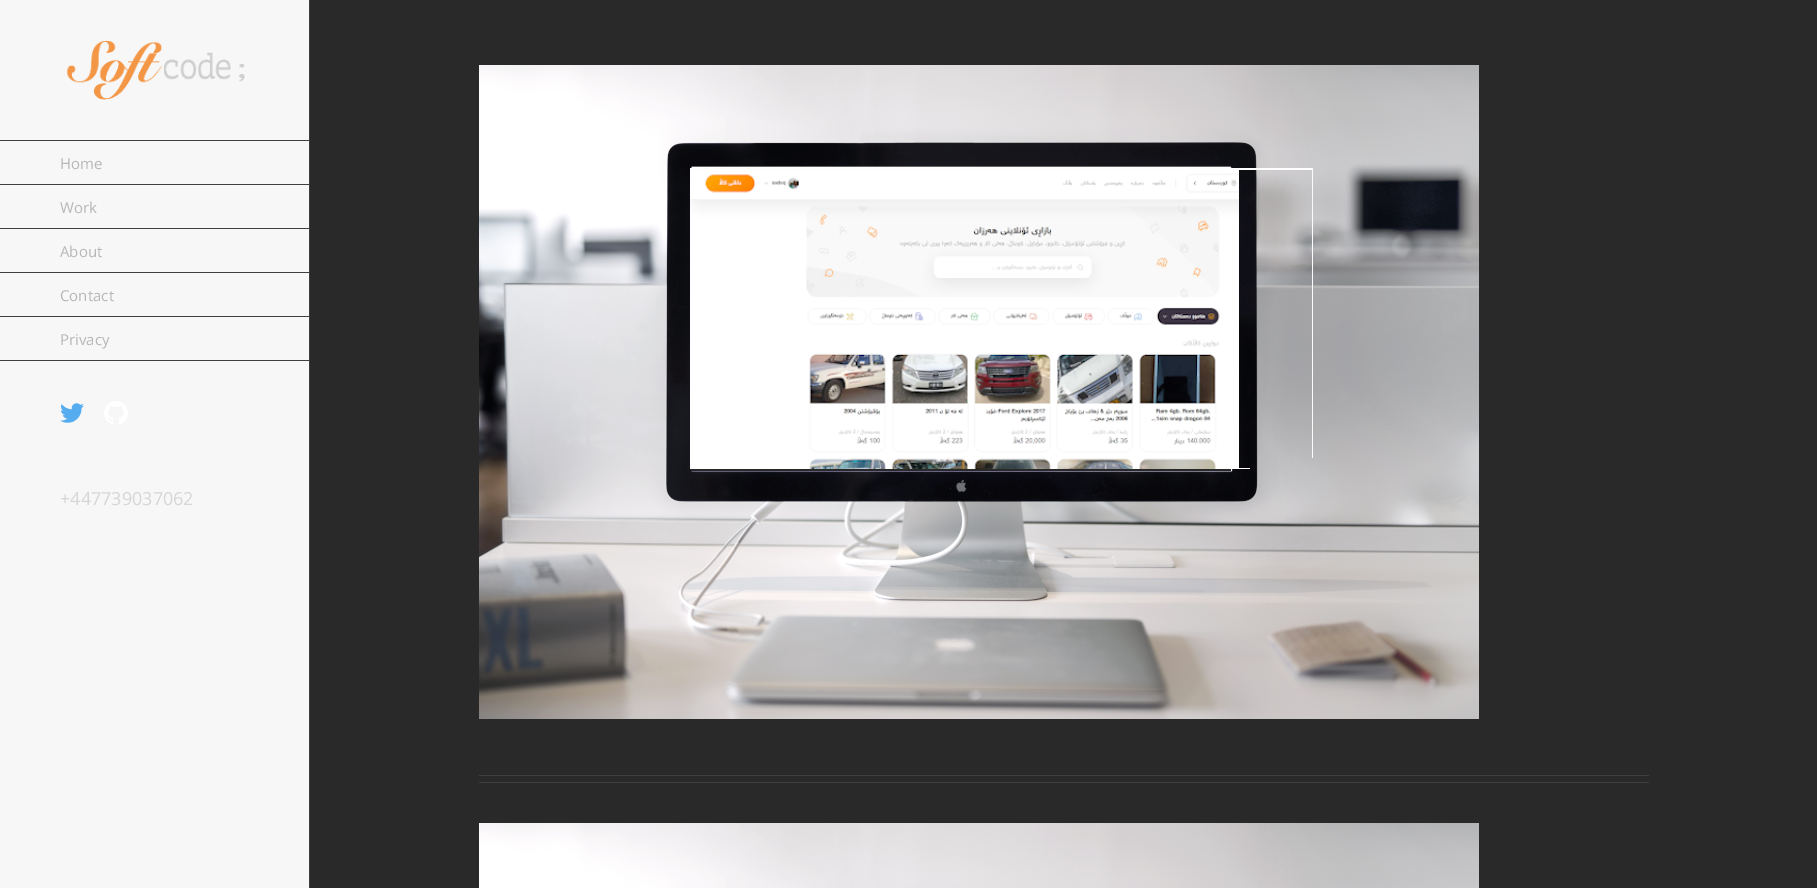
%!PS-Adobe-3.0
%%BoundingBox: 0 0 1817 888
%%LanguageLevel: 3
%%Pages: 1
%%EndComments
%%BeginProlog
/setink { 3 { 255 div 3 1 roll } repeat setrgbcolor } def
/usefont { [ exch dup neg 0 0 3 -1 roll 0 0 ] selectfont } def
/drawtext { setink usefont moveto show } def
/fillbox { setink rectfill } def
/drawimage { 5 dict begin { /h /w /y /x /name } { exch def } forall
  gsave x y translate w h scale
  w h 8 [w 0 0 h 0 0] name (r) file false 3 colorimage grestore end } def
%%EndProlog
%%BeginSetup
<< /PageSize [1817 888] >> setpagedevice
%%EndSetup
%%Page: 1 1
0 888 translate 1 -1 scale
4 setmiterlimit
0 0 1817 888 41 41 42 fillbox
0 0 309 888 247 247 247 fillbox
309 0 1 888 62 62 62 fillbox
(assets/img1.rgb) 66 40 179 60 drawimage
0 140 310 1 62 62 62 fillbox
0 184 310 1 62 62 62 fillbox
(Home) 60 169 /OpenSans-Regular 15 183 183 183 drawtext
0 228 310 1 62 62 62 fillbox
(Work) 60 213 /OpenSans-Regular 15 183 183 183 drawtext
0 272 310 1 62 62 62 fillbox
(About) 60 257 /OpenSans-Regular 15 183 183 183 drawtext
0 316 310 1 62 62 62 fillbox
(Contact) 60 301 /OpenSans-Regular 15 183 183 183 drawtext
0 360 310 1 62 62 62 fillbox
(Privacy) 60 345 /OpenSans-Regular 15 183 183 183 drawtext
(assets/img2.rgb) 60 403 24 20 drawimage
(assets/img3.rgb) 104 401 24 23 drawimage
(+447739037062) 60 505 /OpenSans-Regular 18 214 214 214 drawtext
(assets/img4.rgb) 479 65 1000 654 drawimage
479 775 1170 1 62 62 62 fillbox
479 782 1170 1 62 62 62 fillbox
(assets/img5.rgb) 479 823 1000 65 drawimage
showpage
%%EOF
